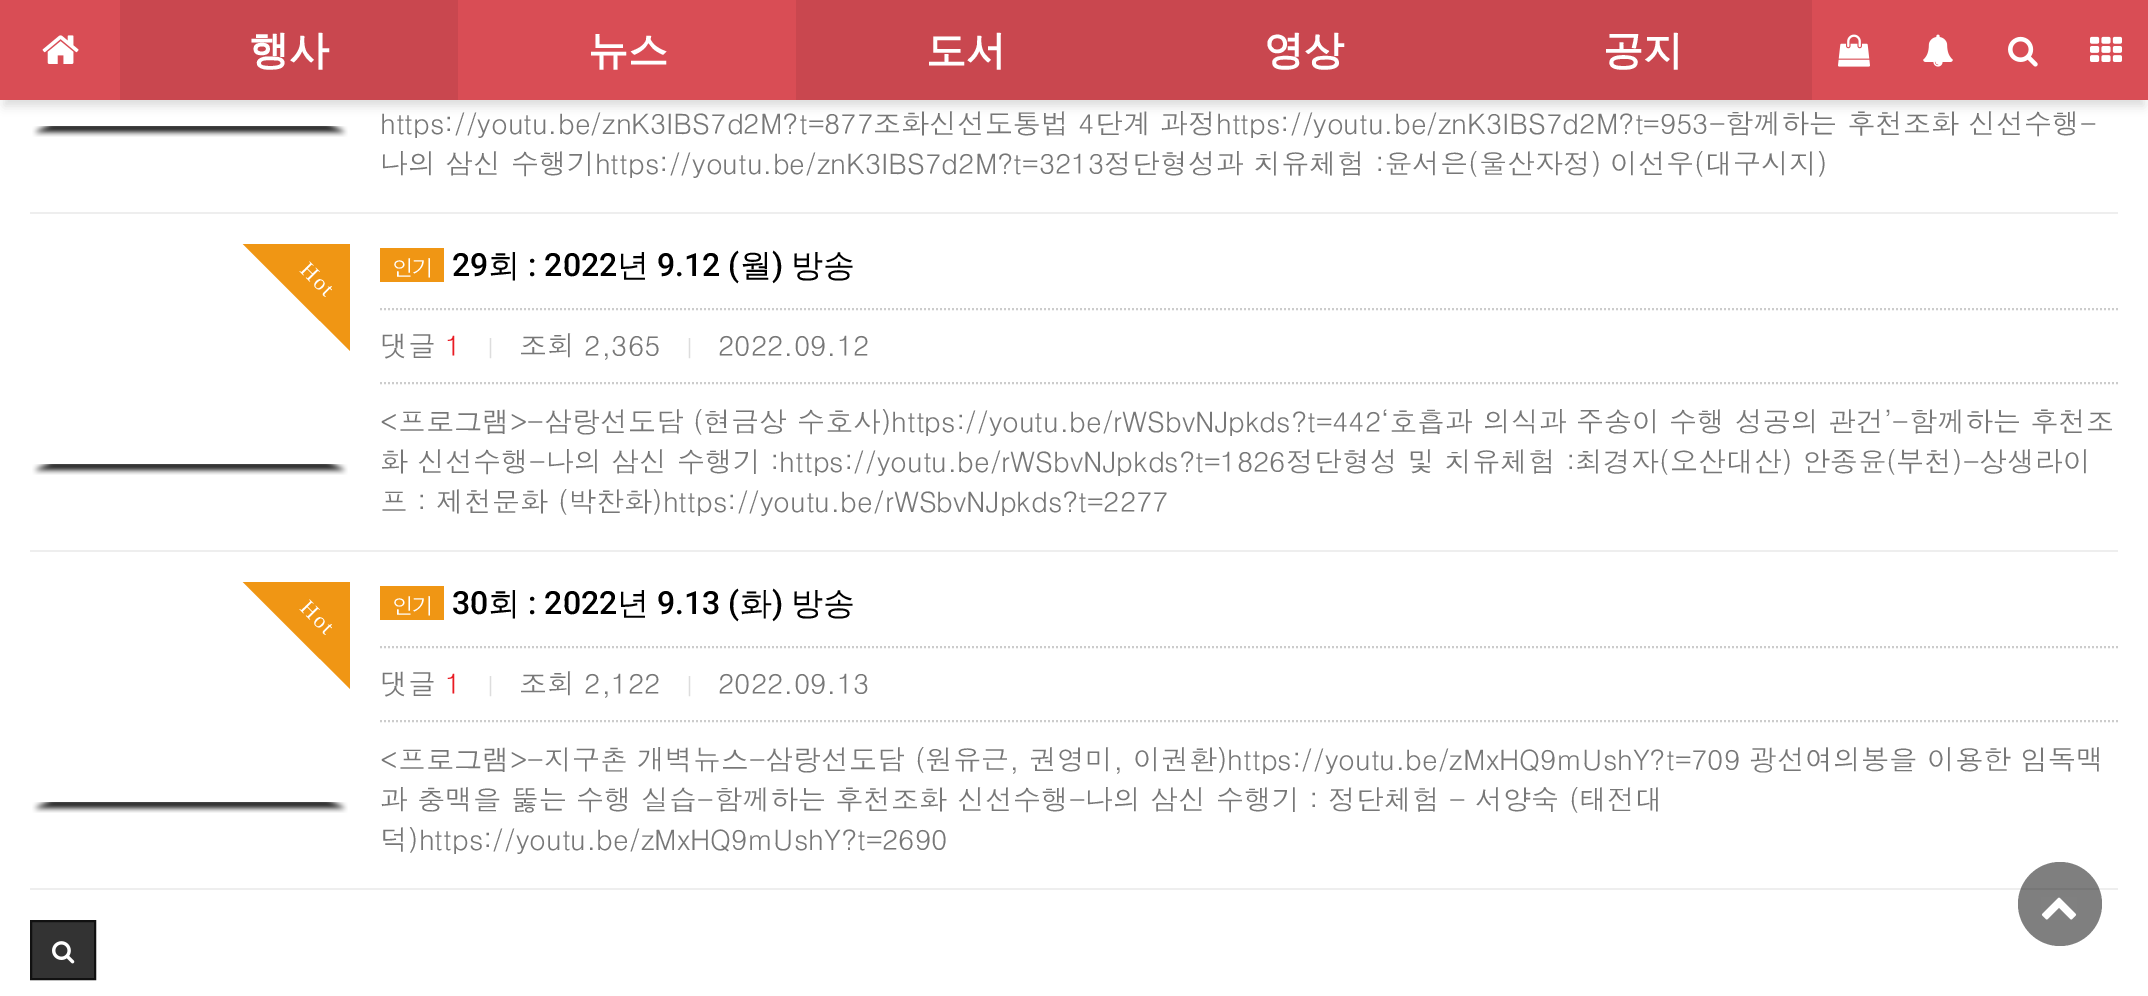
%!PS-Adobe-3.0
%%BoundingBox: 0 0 2148 996
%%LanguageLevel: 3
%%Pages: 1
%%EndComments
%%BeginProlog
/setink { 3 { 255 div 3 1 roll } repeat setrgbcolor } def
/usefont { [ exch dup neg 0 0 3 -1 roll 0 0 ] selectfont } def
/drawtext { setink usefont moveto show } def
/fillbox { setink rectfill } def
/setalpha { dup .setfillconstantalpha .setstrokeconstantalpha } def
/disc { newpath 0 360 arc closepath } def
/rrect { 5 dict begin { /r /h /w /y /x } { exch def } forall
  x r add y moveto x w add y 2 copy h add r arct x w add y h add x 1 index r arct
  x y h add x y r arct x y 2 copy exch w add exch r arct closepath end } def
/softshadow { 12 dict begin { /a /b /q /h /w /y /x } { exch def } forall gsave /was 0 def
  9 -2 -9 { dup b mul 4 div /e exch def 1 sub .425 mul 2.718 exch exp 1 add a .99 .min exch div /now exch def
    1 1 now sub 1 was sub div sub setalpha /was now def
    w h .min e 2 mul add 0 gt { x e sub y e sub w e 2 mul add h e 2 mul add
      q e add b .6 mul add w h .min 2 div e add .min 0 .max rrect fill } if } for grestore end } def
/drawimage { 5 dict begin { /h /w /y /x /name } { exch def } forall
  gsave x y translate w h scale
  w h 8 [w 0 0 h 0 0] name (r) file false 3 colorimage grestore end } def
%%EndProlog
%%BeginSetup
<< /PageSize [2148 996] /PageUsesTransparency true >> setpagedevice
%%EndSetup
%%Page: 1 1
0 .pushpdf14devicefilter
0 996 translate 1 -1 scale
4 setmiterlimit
0 0 2148 996 255 255 255 fillbox
25 25 25 setink
4 14 2140 92 0 5 0.15 softshadow
120 0 1692 100 201 71 79 fillbox
0 0 120 100 217 77 85 fillbox
(assets/img1.rgb) 42 35 37 29 drawimage
(행사) 249 64 /WenQuanYiZenHei-Bold 40 255 255 255 drawtext
458 0 338 100 217 77 85 fillbox
(뉴스) 588 64 /WenQuanYiZenHei-Bold 40 255 255 255 drawtext
(도서) 926 64 /WenQuanYiZenHei-Bold 40 255 255 255 drawtext
(영상) 1264 64 /WenQuanYiZenHei-Bold 40 255 255 255 drawtext
(공지) 1603 64 /WenQuanYiZenHei-Bold 40 255 255 255 drawtext
1812 0 336 100 217 77 85 fillbox
(assets/img2.rgb) 1838 34 32 33 drawimage
(assets/img3.rgb) 1923 34 30 33 drawimage
(assets/img4.rgb) 2008 36 30 31 drawimage
(assets/img5.rgb) 2090 36 32 26 drawimage
30 212 2088 2 238 238 238 fillbox
(assets/img6.rgb) 32 126 316 11 drawimage
(https://youtu.be/znK3IBS7d2M?t=877조화신선도통법 4단계 과정https://youtu.be/znK3IBS7d2M?t=953-함께하는 후천조화 신선수행-) 380 134 /Dotum-Regular 28 119 119 119 drawtext
(나의 삼신 수행기https://youtu.be/znK3IBS7d2M?t=3213정단형성과 치유체험 :윤서은\(울산자정\) 이선우\(대구시지\)) 380 174 /Dotum-Regular 28 119 119 119 drawtext
30 550 2088 2 238 238 238 fillbox
gsave
30 244 320 220 rectclip
240 150 20 setink
263 136 moveto 461 334 lineto 397 398 lineto 199 200 lineto closepath fill
grestore
/LiberationSerif-Regular 22 usefont
255 255 255 setink
gsave 299 271 translate 45 rotate 0 0 moveto 2 0 (Hot) ashow grestore
(assets/img6.rgb) 32 464 316 11 drawimage
380 248 64 34 240 150 20 fillbox
/Dotum-Regular 22 usefont
255 255 255 setink
392 276 moveto -2 0 (인기) ashow
(29) 452 276 /Roboto-Medium 32 0 0 0 drawtext
(회) 488 276 /WenQuanYiZenHei-Medium 32 0 0 0 drawtext
(: 2022) 528 276 /Roboto-Medium 32 0 0 0 drawtext
(년) 617 276 /WenQuanYiZenHei-Medium 32 0 0 0 drawtext
(9.12 \() 657 276 /Roboto-Medium 32 0 0 0 drawtext
(월) 740 276 /WenQuanYiZenHei-Medium 32 0 0 0 drawtext
(\)) 772 276 /Roboto-Medium 32 0 0 0 drawtext
(방송) 791 276 /WenQuanYiZenHei-Medium 32 0 0 0 drawtext
204 204 204 setink
2 setlinewidth
[2 2] 0 setdash
380 309 moveto 2118 309 lineto stroke
380 383 moveto 2118 383 lineto stroke
(댓글) 380 356 /Dotum-Regular 28 119 119 119 drawtext
(1) 445 356 /Dotum-Regular 28 233 27 35 drawtext
(|) 485 356 /Dotum-Regular 22 221 221 221 drawtext
(조회 2,365) 519 356 /Dotum-Regular 28 119 119 119 drawtext
(|) 684 356 /Dotum-Regular 22 221 221 221 drawtext
(2022.09.12) 718 356 /Dotum-Regular 28 119 119 119 drawtext
(<프로그램>-삼랑선도담 \(현금상 수호사\)https://youtu.be/rWSbvNJpkds?t=442‘호흡과 의식과 주송이 수행 성공의 관건’-함께하는 후천조) 380 432 /Dotum-Regular 28 119 119 119 drawtext
(화 신선수행-나의 삼신 수행기 :https://youtu.be/rWSbvNJpkds?t=1826정단형성 및 치유체험 :최경자\(오산대산\) 안종윤\(부천\)-상생라이) 380 472 /Dotum-Regular 28 119 119 119 drawtext
(프 : 제천문화 \(박찬화\)https://youtu.be/rWSbvNJpkds?t=2277) 380 512 /Dotum-Regular 28 119 119 119 drawtext
30 888 2088 2 238 238 238 fillbox
gsave
30 582 320 220 rectclip
240 150 20 setink
263 474 moveto 461 672 lineto 397 736 lineto 199 538 lineto closepath fill
grestore
/LiberationSerif-Regular 22 usefont
255 255 255 setink
gsave 299 609 translate 45 rotate 0 0 moveto 2 0 (Hot) ashow grestore
(assets/img6.rgb) 32 802 316 11 drawimage
380 586 64 34 240 150 20 fillbox
/Dotum-Regular 22 usefont
255 255 255 setink
392 614 moveto -2 0 (인기) ashow
(30) 452 614 /Roboto-Medium 32 0 0 0 drawtext
(회) 488 614 /WenQuanYiZenHei-Medium 32 0 0 0 drawtext
(: 2022) 528 614 /Roboto-Medium 32 0 0 0 drawtext
(년) 617 614 /WenQuanYiZenHei-Medium 32 0 0 0 drawtext
(9.13 \() 657 614 /Roboto-Medium 32 0 0 0 drawtext
(화) 740 614 /WenQuanYiZenHei-Medium 32 0 0 0 drawtext
(\)) 772 614 /Roboto-Medium 32 0 0 0 drawtext
(방송) 791 614 /WenQuanYiZenHei-Medium 32 0 0 0 drawtext
204 204 204 setink
380 647 moveto 2118 647 lineto stroke
380 721 moveto 2118 721 lineto stroke
(댓글) 380 694 /Dotum-Regular 28 119 119 119 drawtext
(1) 445 694 /Dotum-Regular 28 233 27 35 drawtext
(|) 485 694 /Dotum-Regular 22 221 221 221 drawtext
(조회 2,122) 519 694 /Dotum-Regular 28 119 119 119 drawtext
(|) 684 694 /Dotum-Regular 22 221 221 221 drawtext
(2022.09.13) 718 694 /Dotum-Regular 28 119 119 119 drawtext
(<프로그램>-지구촌 개벽뉴스-삼랑선도담 \(원유근, 권영미, 이권환\)https://youtu.be/zMxHQ9mUshY?t=709 광선여의봉을 이용한 임독맥) 380 770 /Dotum-Regular 28 119 119 119 drawtext
(과 충맥을 뚫는 수행 실습-함께하는 후천조화 신선수행-나의 삼신 수행기 : 정단체험 - 서양숙 \(태전대) 380 810 /Dotum-Regular 28 119 119 119 drawtext
(덕\)https://youtu.be/zMxHQ9mUshY?t=2690) 380 850 /Dotum-Regular 28 119 119 119 drawtext
51 51 51 setink
31 921 moveto 95 921 lineto 95 979 lineto 31 979 lineto closepath gsave fill grestore
17 17 17 setink
[] 0 setdash
stroke
(assets/img7.rgb) 52 941 23 23 drawimage
0.5 setalpha
0 0 0 setink
2060 904 42 disc fill
1 setalpha
(assets/img8.rgb) 2041 897 36 23 drawimage
.poppdf14devicefilter showpage
%%EOF
